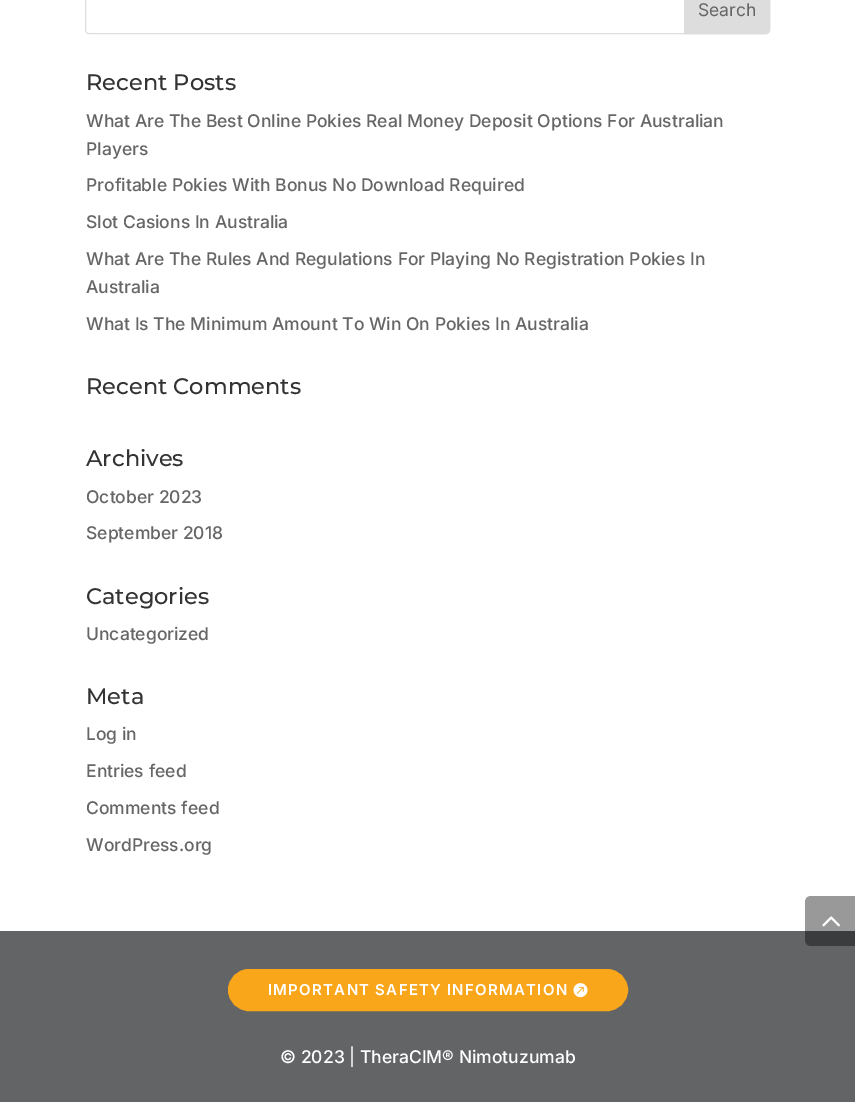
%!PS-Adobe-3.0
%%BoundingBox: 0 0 855 1102
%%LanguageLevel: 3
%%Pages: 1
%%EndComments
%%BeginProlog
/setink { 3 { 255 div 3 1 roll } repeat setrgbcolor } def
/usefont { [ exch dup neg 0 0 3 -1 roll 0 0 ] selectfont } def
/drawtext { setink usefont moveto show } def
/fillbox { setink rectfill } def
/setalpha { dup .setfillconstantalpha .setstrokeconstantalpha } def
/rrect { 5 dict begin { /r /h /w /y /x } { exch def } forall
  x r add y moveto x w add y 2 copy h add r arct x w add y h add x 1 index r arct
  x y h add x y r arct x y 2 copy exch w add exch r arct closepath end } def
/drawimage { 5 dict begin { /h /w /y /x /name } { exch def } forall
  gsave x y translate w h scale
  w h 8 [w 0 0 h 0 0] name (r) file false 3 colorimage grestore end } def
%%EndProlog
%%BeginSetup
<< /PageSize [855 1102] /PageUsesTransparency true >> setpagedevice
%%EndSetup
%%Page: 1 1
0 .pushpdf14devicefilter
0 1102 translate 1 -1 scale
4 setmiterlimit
0 0 855 1102 255 255 255 fillbox
221 221 221 setink
85.5 -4.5 684 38 3.5 rrect stroke
684.5 -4.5 moveto 766 -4.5 lineto 768 -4.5 769.5 -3 769.5 -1 curveto 769.5 30 lineto 769.5 32 768 33.5 766 33.5 curveto 684.5 33.5 lineto closepath gsave fill grestore
stroke
(Search) 698 16 /Inter-Regular 17.5 102 102 102 drawtext
(Recent Posts) 86 90 /Montserrat-Medium 22.5 51 51 51 drawtext
(What Are The Best Online Pokies Real Money Deposit Options For Australian) 86 127 /Inter-Medium 17.5 102 102 102 drawtext
(Players) 86 155 /Inter-Medium 17.5 102 102 102 drawtext
(Profitable Pokies With Bonus No Download Required) 86 191 /Inter-Medium 17.5 102 102 102 drawtext
(Slot Casions In Australia) 86 228 /Inter-Medium 17.5 102 102 102 drawtext
(What Are The Rules And Regulations For Playing No Registration Pokies In) 86 265 /Inter-Medium 17.5 102 102 102 drawtext
(Australia) 86 293 /Inter-Medium 17.5 102 102 102 drawtext
(What Is The Minimum Amount To Win On Pokies In Australia) 86 330 /Inter-Medium 17.5 102 102 102 drawtext
(Recent Comments) 86 394 /Montserrat-Medium 22.5 51 51 51 drawtext
(Archives) 86 466 /Montserrat-Medium 22.5 51 51 51 drawtext
(October 2023) 86 503 /Inter-Medium 17.5 102 102 102 drawtext
(September 2018) 86 539 /Inter-Medium 17.5 102 102 102 drawtext
(Categories) 86 604 /Montserrat-Medium 22.5 51 51 51 drawtext
(Uncategorized) 86 640 /Inter-Medium 17.5 102 102 102 drawtext
(Meta) 86 704 /Montserrat-Medium 22.5 51 51 51 drawtext
(Log in) 86 740 /Inter-Medium 17.5 102 102 102 drawtext
(Entries feed) 86 777 /Inter-Medium 17.5 102 102 102 drawtext
(Comments feed) 86 814 /Inter-Medium 17.5 102 102 102 drawtext
(WordPress.org) 86 851 /Inter-Medium 17.5 102 102 102 drawtext
0 931 855 171 99 100 102 fillbox
250 166 26 setink
229.5 970.5 397 39 19.5 rrect gsave fill grestore
3 setlinewidth
stroke
/Inter-SemiBold 15 usefont
255 255 255 setink
268 995 moveto 1.25 0 (IMPORTANT SAFETY INFORMATION) ashow
(assets/img1.rgb) 573 983 15 15 drawimage
(© 2023 | TheraCIM® Nimotuzumab) 280 1063 /Inter-Medium 17.5 255 255 255 drawtext
0.4 setalpha
0 0 0 setink
811 896 moveto 855 896 lineto 855 946 lineto 811 946 lineto 807.5 946 805 943.5 805 940 curveto 805 902 lineto 805 898.5 807.5 896 811 896 curveto closepath fill
1 setalpha
(assets/img2.rgb) 822 916 18 11 drawimage
.poppdf14devicefilter showpage
%%EOF
